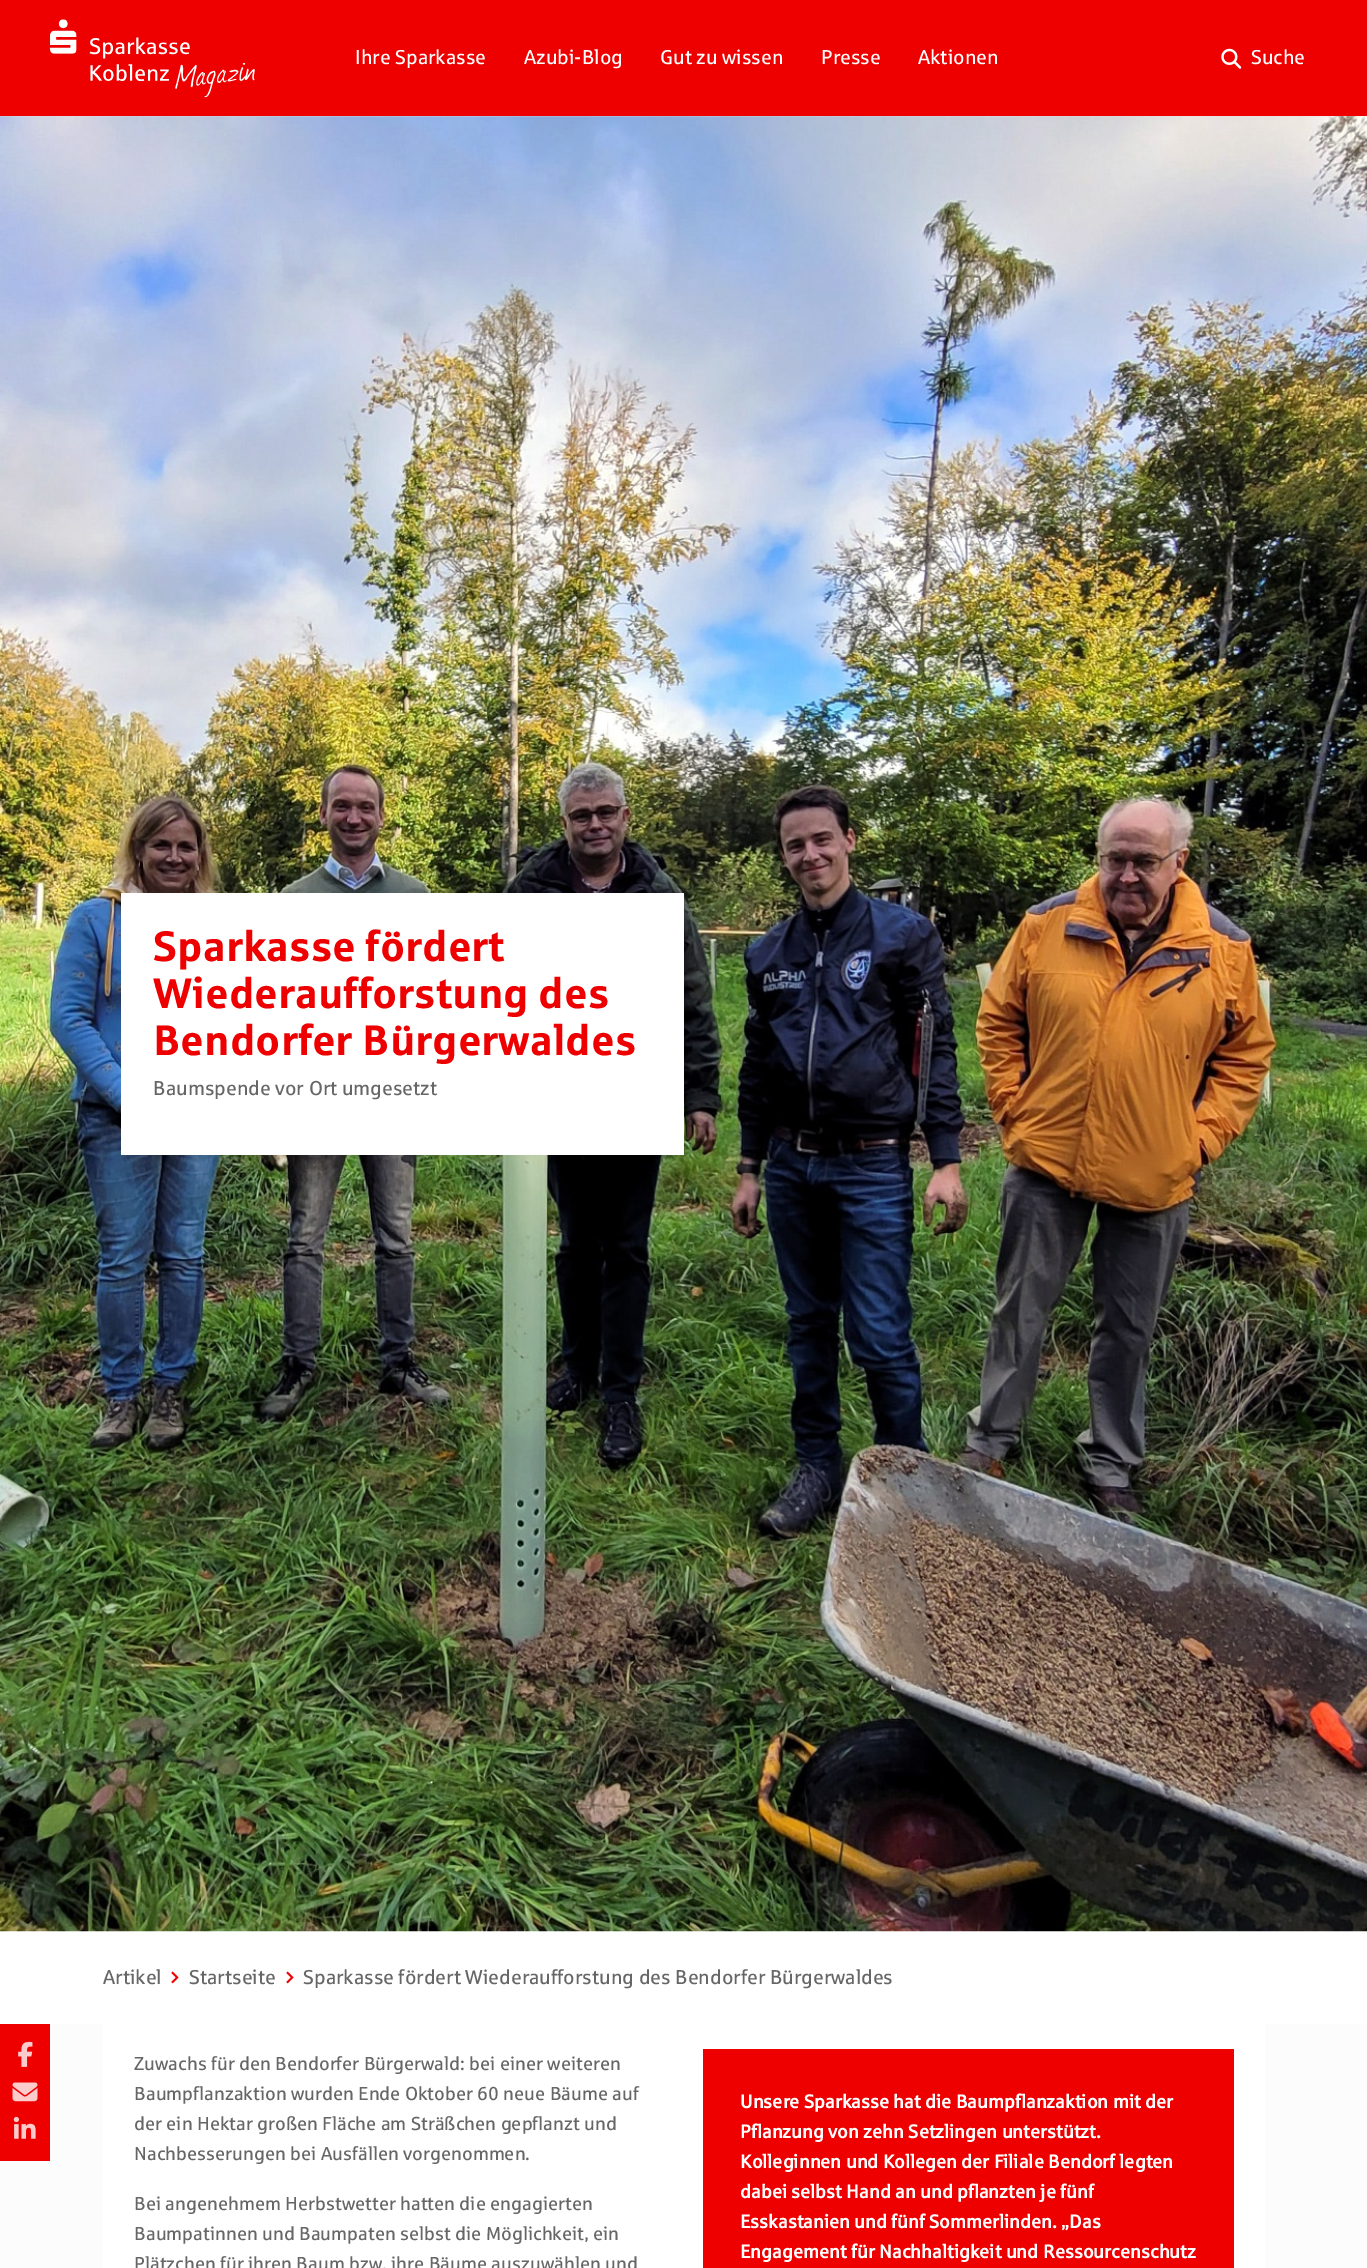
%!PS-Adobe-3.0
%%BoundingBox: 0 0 1367 2268
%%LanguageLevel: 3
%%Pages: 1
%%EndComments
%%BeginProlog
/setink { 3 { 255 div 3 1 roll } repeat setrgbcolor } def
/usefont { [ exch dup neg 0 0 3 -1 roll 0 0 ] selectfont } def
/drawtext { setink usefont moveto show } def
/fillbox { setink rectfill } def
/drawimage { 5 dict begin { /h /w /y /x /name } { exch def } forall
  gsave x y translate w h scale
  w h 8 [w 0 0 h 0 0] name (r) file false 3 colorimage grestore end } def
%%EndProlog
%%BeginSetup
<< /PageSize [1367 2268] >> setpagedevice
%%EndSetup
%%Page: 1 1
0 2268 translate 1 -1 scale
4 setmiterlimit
0 0 1367 2268 255 255 255 fillbox
0 0 1367 116 238 0 0 fillbox
(assets/img1.rgb) 50 19 205 79 drawimage
(Ihre Sparkasse) 355 64 /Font-Regular 20 255 255 255 drawtext
(Azubi-Blog) 524 64 /Font-Regular 20 255 255 255 drawtext
(Gut zu wissen) 660 64 /Font-Regular 20 255 255 255 drawtext
(Presse) 821 64 /Font-Regular 20 255 255 255 drawtext
(Aktionen) 918 64 /Font-Regular 20 255 255 255 drawtext
(assets/img2.rgb) 1221 48 21 21 drawimage
(Suche) 1251 64 /Font-Regular 20 255 255 255 drawtext
(assets/img3.rgb) 0 116 1367 1816 drawimage
121 893 563 262 255 255 255 fillbox
(Sparkasse fördert) 153 961 /Font-Bold 42.5 238 0 0 drawtext
(Wiederaufforstung des) 153 1008 /Font-Bold 42.5 238 0 0 drawtext
(Bendorfer Bürgerwaldes) 153 1055 /Font-Bold 42.5 238 0 0 drawtext
(Baumspende vor Ort umgesetzt) 153 1095 /Font-Regular 20 102 102 102 drawtext
(Artikel) 103 1984 /Font-Regular 20 102 102 102 drawtext
(assets/img4.rgb) 171 1971 8 13 drawimage
(Startseite) 189 1984 /Font-Regular 20 102 102 102 drawtext
(assets/img4.rgb) 286 1971 8 13 drawimage
(Sparkasse fördert Wiederaufforstung des Bendorfer Bürgerwaldes) 303 1984 /Font-Regular 20 102 102 102 drawtext
0 2024 1367 244 252 252 252 fillbox
0 2024 50 137 238 0 0 fillbox
(assets/img5.rgb) 18 2041 15 26 drawimage
(assets/img6.rgb) 12 2082 26 20 drawimage
(assets/img7.rgb) 13 2116 23 23 drawimage
103 2024 1162 244 255 255 255 fillbox
(Zuwachs für den Bendorfer Bürgerwald: bei einer weiteren) 134 2070 /Font-Regular 18.75 102 102 102 drawtext
(Baumpflanzaktion wurden Ende Oktober 60 neue Bäume auf) 134 2100 /Font-Regular 18.75 102 102 102 drawtext
(der ein Hektar großen Fläche am Sträßchen gepflanzt und) 134 2130 /Font-Regular 18.75 102 102 102 drawtext
(Nachbesserungen bei Ausfällen vorgenommen.) 134 2160 /Font-Regular 18.75 102 102 102 drawtext
(Bei angenehmem Herbstwetter hatten die engagierten) 134 2210 /Font-Regular 18.75 102 102 102 drawtext
(Baumpatinnen und Baumpaten selbst die Möglichkeit, ein) 134 2240 /Font-Regular 18.75 102 102 102 drawtext
(Plätzchen für ihren Baum bzw. ihre Bäume auszuwählen und) 134 2270 /Font-Regular 18.75 102 102 102 drawtext
703 2049 531 219 238 0 0 fillbox
(Unsere Sparkasse hat die Baumpflanzaktion mit der) 740 2108 /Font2-Bold 18.75 255 255 255 drawtext
(Pflanzung von zehn Setzlingen unterstützt.) 740 2138 /Font2-Bold 18.75 255 255 255 drawtext
(Kolleginnen und Kollegen der Filiale Bendorf legten) 740 2168 /Font2-Bold 18.75 255 255 255 drawtext
(dabei selbst Hand an und pflanzten je fünf) 740 2198 /Font2-Bold 18.75 255 255 255 drawtext
(Esskastanien und fünf Sommerlinden. „Das) 740 2228 /Font2-Bold 18.75 255 255 255 drawtext
(Engagement für Nachhaltigkeit und Ressourcenschutz) 740 2258 /Font2-Bold 18.75 255 255 255 drawtext
showpage
%%EOF
